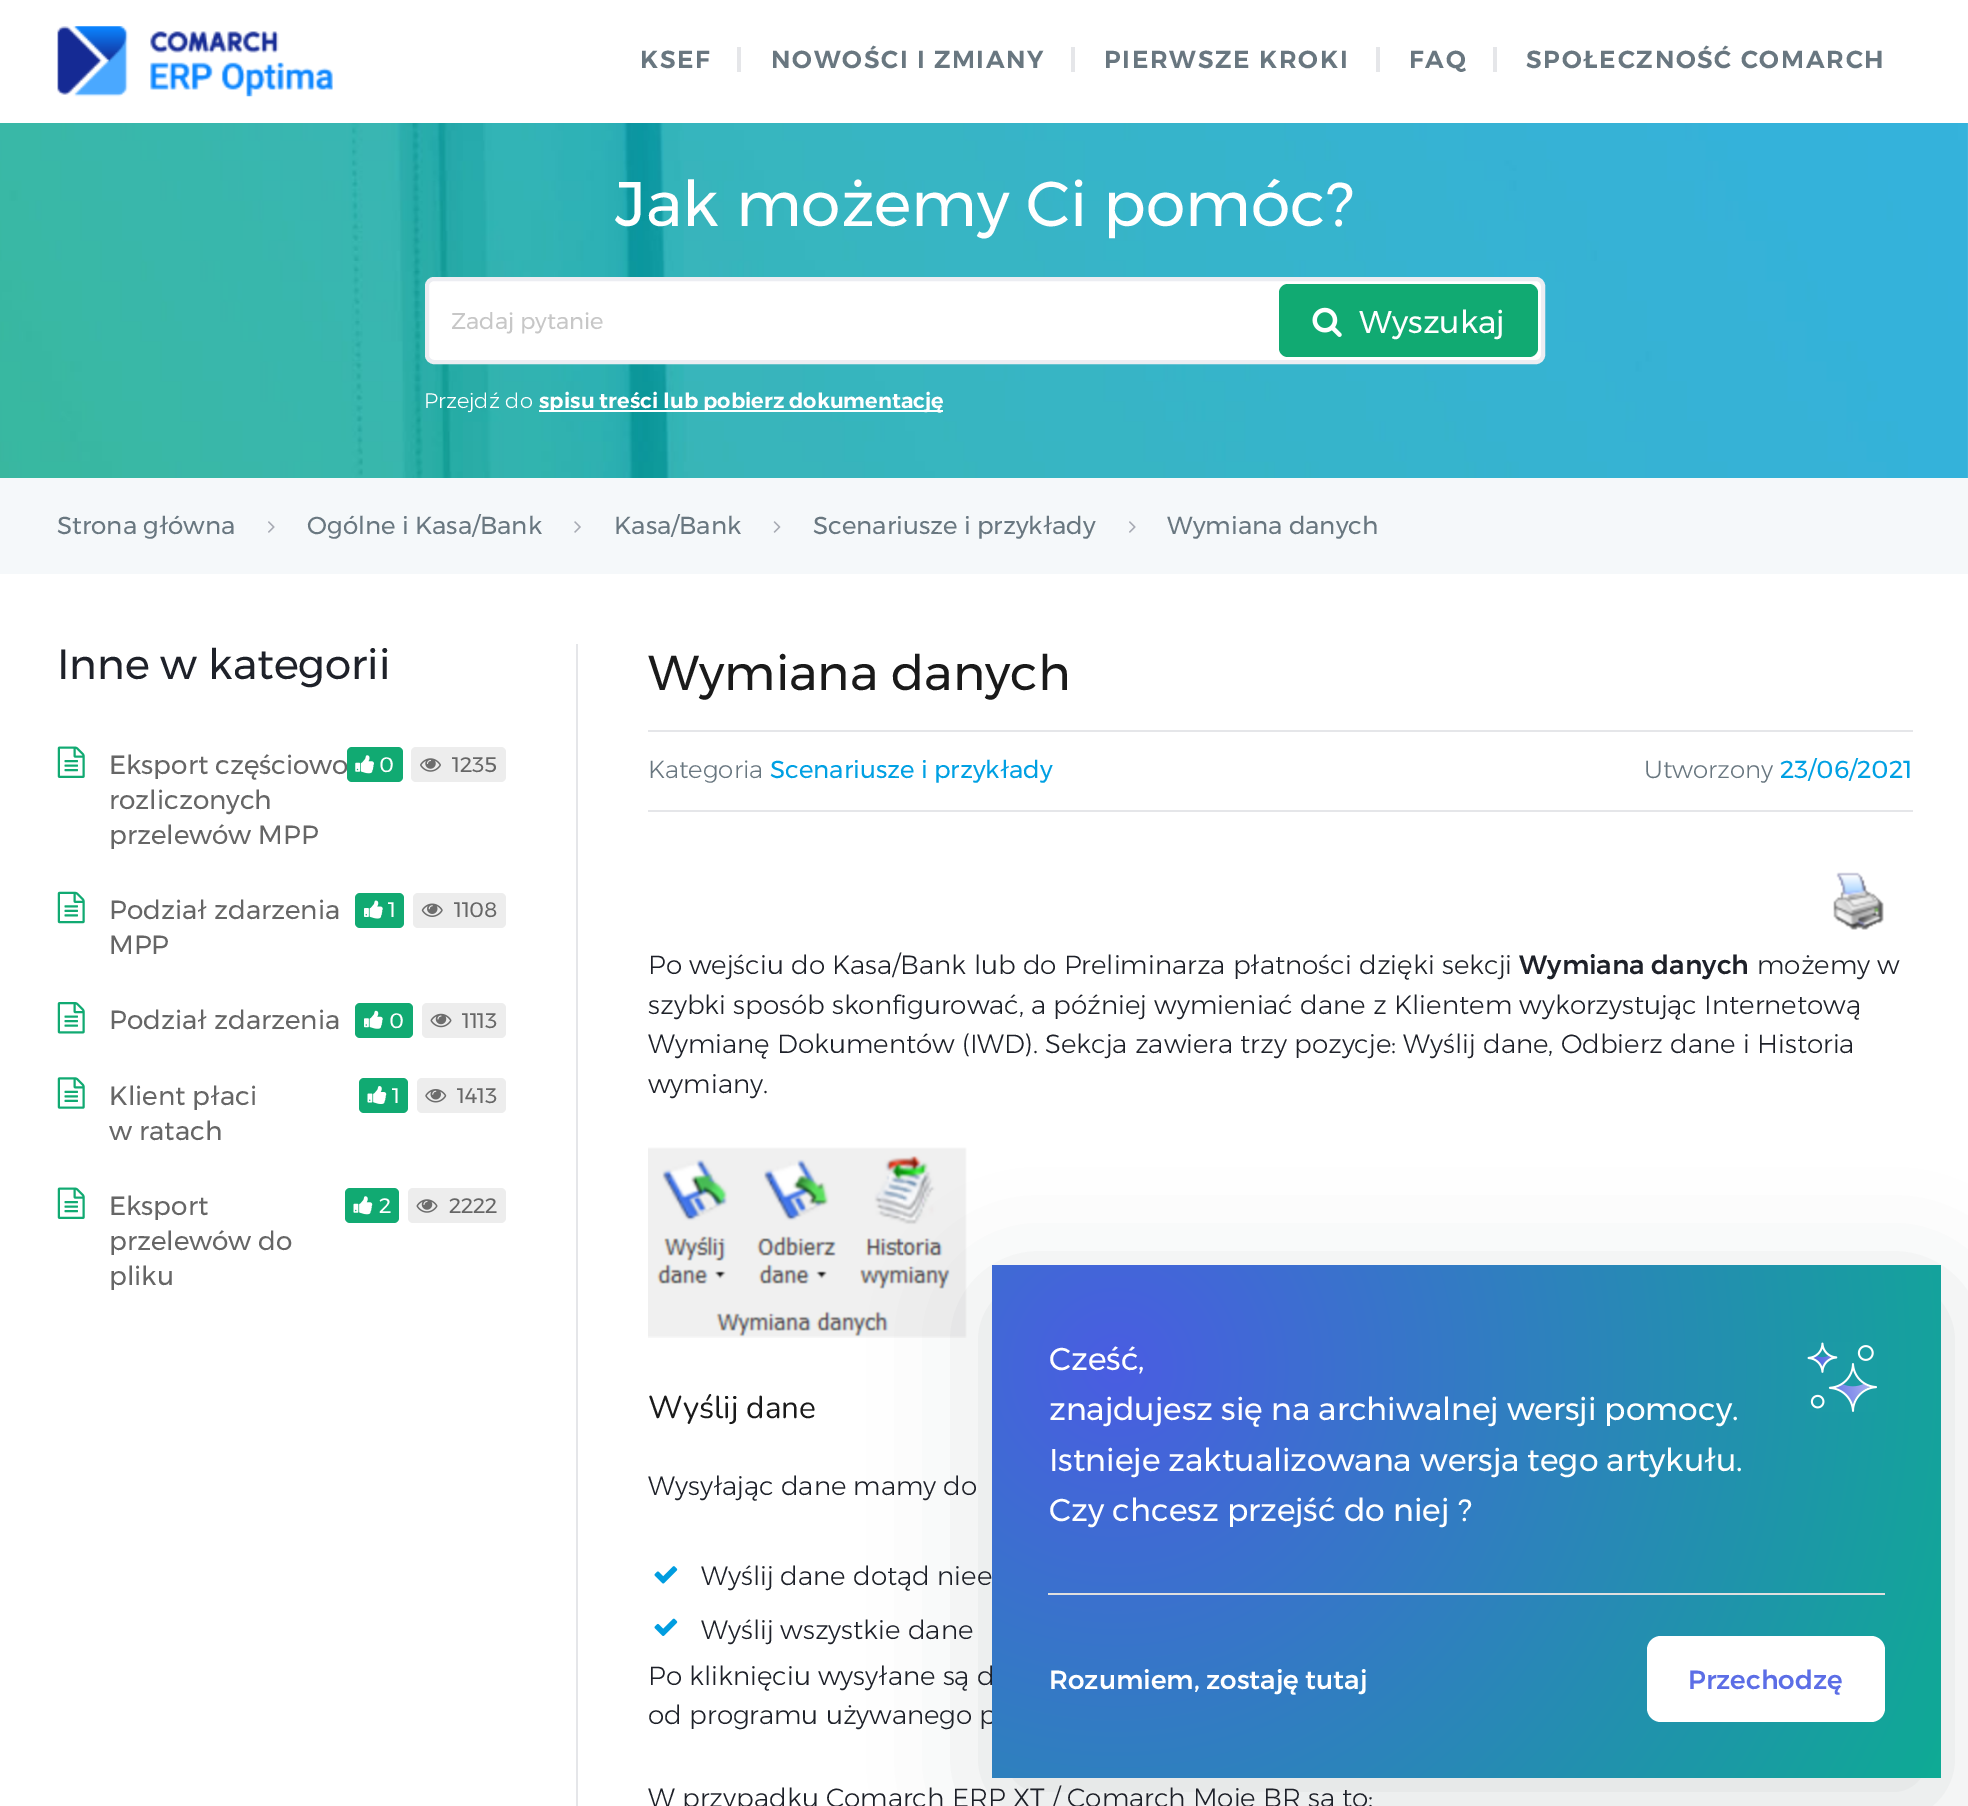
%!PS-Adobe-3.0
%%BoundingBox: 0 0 1968 1806
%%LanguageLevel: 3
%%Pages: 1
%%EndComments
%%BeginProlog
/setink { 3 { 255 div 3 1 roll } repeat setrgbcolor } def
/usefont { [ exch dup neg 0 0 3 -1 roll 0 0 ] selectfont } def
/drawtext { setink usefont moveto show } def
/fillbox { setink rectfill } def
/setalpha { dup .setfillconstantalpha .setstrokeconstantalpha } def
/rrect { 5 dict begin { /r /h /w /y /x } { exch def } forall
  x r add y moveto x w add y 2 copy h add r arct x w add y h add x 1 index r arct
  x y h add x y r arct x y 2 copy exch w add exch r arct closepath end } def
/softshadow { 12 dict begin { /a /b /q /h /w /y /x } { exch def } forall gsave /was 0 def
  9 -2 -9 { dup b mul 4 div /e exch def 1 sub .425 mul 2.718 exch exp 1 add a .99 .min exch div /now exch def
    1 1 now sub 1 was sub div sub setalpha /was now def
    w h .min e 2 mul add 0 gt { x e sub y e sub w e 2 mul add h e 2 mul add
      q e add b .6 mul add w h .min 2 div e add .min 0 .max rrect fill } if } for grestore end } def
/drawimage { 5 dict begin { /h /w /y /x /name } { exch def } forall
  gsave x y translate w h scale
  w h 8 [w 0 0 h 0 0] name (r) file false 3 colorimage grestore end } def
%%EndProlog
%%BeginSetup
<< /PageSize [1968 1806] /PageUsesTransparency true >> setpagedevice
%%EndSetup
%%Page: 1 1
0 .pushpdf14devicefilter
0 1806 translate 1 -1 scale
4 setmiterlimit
0 0 1968 1806 255 255 255 fillbox
(assets/img1.rgb) 57 26 276 71 drawimage
/Montserrat-SemiBold 24.5 usefont
105 119 128 setink
640 68 moveto 1.75 0 (KSEF) ashow
737 47 4 25 229 230 233 fillbox
105 119 128 setink
771 68 moveto 1.75 0 (NOWOŚCI I ZMIANY) ashow
1071 47 4 25 229 230 233 fillbox
105 119 128 setink
1104 68 moveto 1.75 0 (PIERWSZE KROKI) ashow
1376 47 4 25 229 230 233 fillbox
105 119 128 setink
1409 68 moveto 1.75 0 (FAQ) ashow
1493 47 4 25 229 230 233 fillbox
105 119 128 setink
1526 68 moveto 1.75 0 (SPOŁECZNOŚĆ COMARCH) ashow
(assets/img2.rgb) 0 123 1968 355 drawimage
(Jak możemy Ci pomóc?) 615 226 /Montserrat-Regular 63 255 255 255 drawtext
427 279 1116 83 7 rrect gsave fill grestore
236 237 242 setink
4 setlinewidth
stroke
gsave
452 306 1067 28 rectclip
(Zadaj pytanie) 451 329 /Montserrat-Regular 22.75 199 199 199 drawtext
grestore
17 170 114 setink
1279 284 259 73 9 rrect fill
(assets/img3.rgb) 1312 307 30 30 drawimage
(Wyszukaj) 1359 333 /Montserrat-Regular 31.5 255 255 255 drawtext
(Przejdź do) 424 408 /Montserrat-Light 21 255 255 255 drawtext
539 410 404 2 255 255 255 fillbox
(spisu treści lub pobierz dokumentację) 539 408 /Montserrat-SemiBold 21 255 255 255 drawtext
0 478 1968 96 245 248 250 fillbox
(Strona główna) 57 534 /Montserrat-Regular 24.5 105 119 128 drawtext
(assets/img4.rgb) 268 521 7 12 drawimage
(Ogólne i Kasa/Bank) 307 534 /Montserrat-Regular 24.5 105 119 128 drawtext
(assets/img5.rgb) 574 521 7 12 drawimage
(Kasa/Bank) 614 534 /Montserrat-Regular 24.5 105 119 128 drawtext
(assets/img6.rgb) 773 521 8 12 drawimage
(Scenariusze i przykłady) 813 534 /Montserrat-Regular 24.5 105 119 128 drawtext
(assets/img4.rgb) 1129 521 7 12 drawimage
(Wymiana danych) 1167 534 /Montserrat-Regular 24.5 105 119 128 drawtext
(Inne w kategorii) 57 679 /Montserrat-Regular 42 30 33 41 drawtext
(assets/img7.rgb) 57 746 28 32 drawimage
(Eksport częściowo) 109 774 /Montserrat-Regular 26.25 102 102 102 drawtext
17 170 114 setink
347 747 56 35 5 rrect fill
(assets/img8.rgb) 355 755 19 19 drawimage
(0) 379 772 /Montserrat-Regular 21 255 255 255 drawtext
237 237 237 setink
411 747 95 35 5 rrect fill
(assets/img9.rgb) 420 758 21 14 drawimage
(1235) 452 772 /Montserrat-Regular 21 102 102 102 drawtext
(rozliczonych) 109 809 /Montserrat-Regular 26.25 102 102 102 drawtext
(przelewów MPP) 109 844 /Montserrat-Regular 26.25 102 102 102 drawtext
(assets/img10.rgb) 57 891 28 33 drawimage
(Podział zdarzenia) 109 919 /Montserrat-Regular 26.25 102 102 102 drawtext
17 170 114 setink
355 893 49 35 5 rrect fill
(assets/img11.rgb) 364 900 19 19 drawimage
(1) 388 917 /Montserrat-Regular 21 255 255 255 drawtext
237 237 237 setink
413 893 93 35 5 rrect fill
(assets/img12.rgb) 421 903 22 14 drawimage
(1108) 454 917 /Montserrat-Regular 21 102 102 102 drawtext
(MPP) 109 954 /Montserrat-Regular 26.25 102 102 102 drawtext
(assets/img13.rgb) 57 1002 28 32 drawimage
(Podział zdarzenia) 109 1029 /Montserrat-Regular 26.25 102 102 102 drawtext
17 170 114 setink
355 1003 58 35 5 rrect fill
(assets/img14.rgb) 364 1010 19 19 drawimage
(0) 389 1028 /Montserrat-Regular 21 255 255 255 drawtext
237 237 237 setink
422 1003 84 35 5 rrect fill
(assets/img15.rgb) 430 1013 22 15 drawimage
(1113) 462 1028 /Montserrat-Regular 21 102 102 102 drawtext
(assets/img16.rgb) 57 1077 28 32 drawimage
(Klient płaci) 109 1105 /Montserrat-Regular 26.25 102 102 102 drawtext
17 170 114 setink
359 1078 49 35 5 rrect fill
(assets/img17.rgb) 367 1086 20 18 drawimage
(1) 392 1103 /Montserrat-Regular 21 255 255 255 drawtext
237 237 237 setink
417 1078 89 35 5 rrect fill
(assets/img18.rgb) 425 1089 22 14 drawimage
(1413) 457 1103 /Montserrat-Regular 21 102 102 102 drawtext
(w ratach) 109 1140 /Montserrat-Regular 26.25 102 102 102 drawtext
(assets/img7.rgb) 57 1187 28 32 drawimage
(Eksport) 109 1215 /Montserrat-Regular 26.25 102 102 102 drawtext
17 170 114 setink
345 1188 54 35 5 rrect fill
(assets/img19.rgb) 353 1196 20 19 drawimage
(2) 379 1213 /Montserrat-Regular 21 255 255 255 drawtext
237 237 237 setink
408 1188 98 35 5 rrect fill
(assets/img20.rgb) 416 1199 22 14 drawimage
(2222) 449 1213 /Montserrat-Regular 21 102 102 102 drawtext
(przelewów do) 109 1250 /Montserrat-Regular 26.25 102 102 102 drawtext
(pliku) 109 1285 /Montserrat-Regular 26.25 102 102 102 drawtext
576 644 2 1162 229 230 233 fillbox
(Wymiana danych) 648 690 /Montserrat-Regular 49 26 26 26 drawtext
648 730 1265 2 229 230 233 fillbox
648 810 1265 2 229 230 233 fillbox
(Kategoria) 648 778 /Montserrat-Light 24.5 105 119 128 drawtext
(Scenariusze i przykłady) 770 778 /Montserrat-Regular 24.5 0 160 227 drawtext
(Utworzony) 1644 778 /Montserrat-Light 24.5 105 119 128 drawtext
(23/06/2021) 1780 778 /Montserrat-Regular 24.5 0 160 227 drawtext
(assets/img21.rgb) 1833 872 51 58 drawimage
(Po wejściu do Kasa/Bank lub do Preliminarza płatności dzięki sekcji) 648 974 /Montserrat-Light 26.25 30 33 41 drawtext
(Wymiana danych) 1519 974 /Montserrat-Medium 26.25 30 33 41 drawtext
(możemy w) 1757 974 /Montserrat-Light 26.25 30 33 41 drawtext
(szybki sposób skonfigurować, a później wymieniać dane z Klientem wykorzystując Internetową) 648 1014 /Montserrat-Light 26.25 30 33 41 drawtext
(Wymianę Dokumentów \(IWD\). Sekcja zawiera trzy pozycje: Wyślij dane, Odbierz dane i Historia) 648 1053 /Montserrat-Light 26.25 30 33 41 drawtext
(wymiany.) 648 1093 /Montserrat-Light 26.25 30 33 41 drawtext
(assets/img22.rgb) 648 1147 319 191 drawimage
(Wyślij dane) 648 1418 /Nunito-Regular 31.5 26 26 26 drawtext
(Wysyłając dane mamy do) 648 1495 /Montserrat-Light 26.25 30 33 41 drawtext
(assets/img23.rgb) 654 1566 24 18 drawimage
(Wyślij dane dotąd niee) 701 1585 /Montserrat-Light 26.25 30 33 41 drawtext
(assets/img24.rgb) 654 1618 24 18 drawimage
(Wyślij wszystkie dane) 701 1639 /Montserrat-Light 26.25 30 33 41 drawtext
(Po kliknięciu wysyłane są d) 648 1685 /Montserrat-Light 26.25 30 33 41 drawtext
(od programu używanego p) 648 1724 /Montserrat-Light 26.25 30 33 41 drawtext
(W przypadku Comarch ERP XT / Comarch Moje BR są to:) 648 1807 /Montserrat-Light 26.25 30 33 41 drawtext
35 40 45 setink
992 1293 949 513 14 56 0.15 softshadow
gsave 992 1265 moveto 1941 1265 lineto 1941 1778 lineto 992 1778 lineto closepath clip newpath 1116 1368 translate 922 922 scale
<< /ShadingType 3 /ColorSpace /DeviceRGB /Coords [0 0 0 0 0 1] /Extend [true true] /Function << /FunctionType 3 /Domain [0 1] /Functions [<< /FunctionType 2 /Domain [0 1] /C0 [0.29 0.365 0.886] /C1 [0.059 0.667 0.584] /N 1 >> << /FunctionType 2 /Domain [0 1] /C0 [0.059 0.667 0.584] /C1 [0.059 0.667 0.584] /N 1 >>] /Bounds [0.99] /Encode [0 1 0 1] >> >> shfill grestore
(Cześć,) 1049 1370 /Montserrat-Regular 31.5 255 255 255 drawtext
(znajdujesz się na archiwalnej wersji pomocy.) 1049 1420 /Montserrat-Regular 31.5 255 255 255 drawtext
(Istnieje zaktualizowana wersja tego artykułu.) 1049 1471 /Montserrat-Regular 31.5 255 255 255 drawtext
(Czy chcesz przejść do niej ?) 1049 1521 /Montserrat-Regular 31.5 255 255 255 drawtext
(assets/img25.rgb) 1807 1342 70 70 drawimage
1048 1593 837 2 223 223 223 fillbox
(Rozumiem, zostaję tutaj) 1049 1689 /Montserrat-Medium 26.25 255 255 255 drawtext
1647 1636 238 86 14 rrect fill
(Przechodzę) 1688 1689 /Montserrat-Medium 26.25 92 110 230 drawtext
.poppdf14devicefilter showpage
%%EOF
